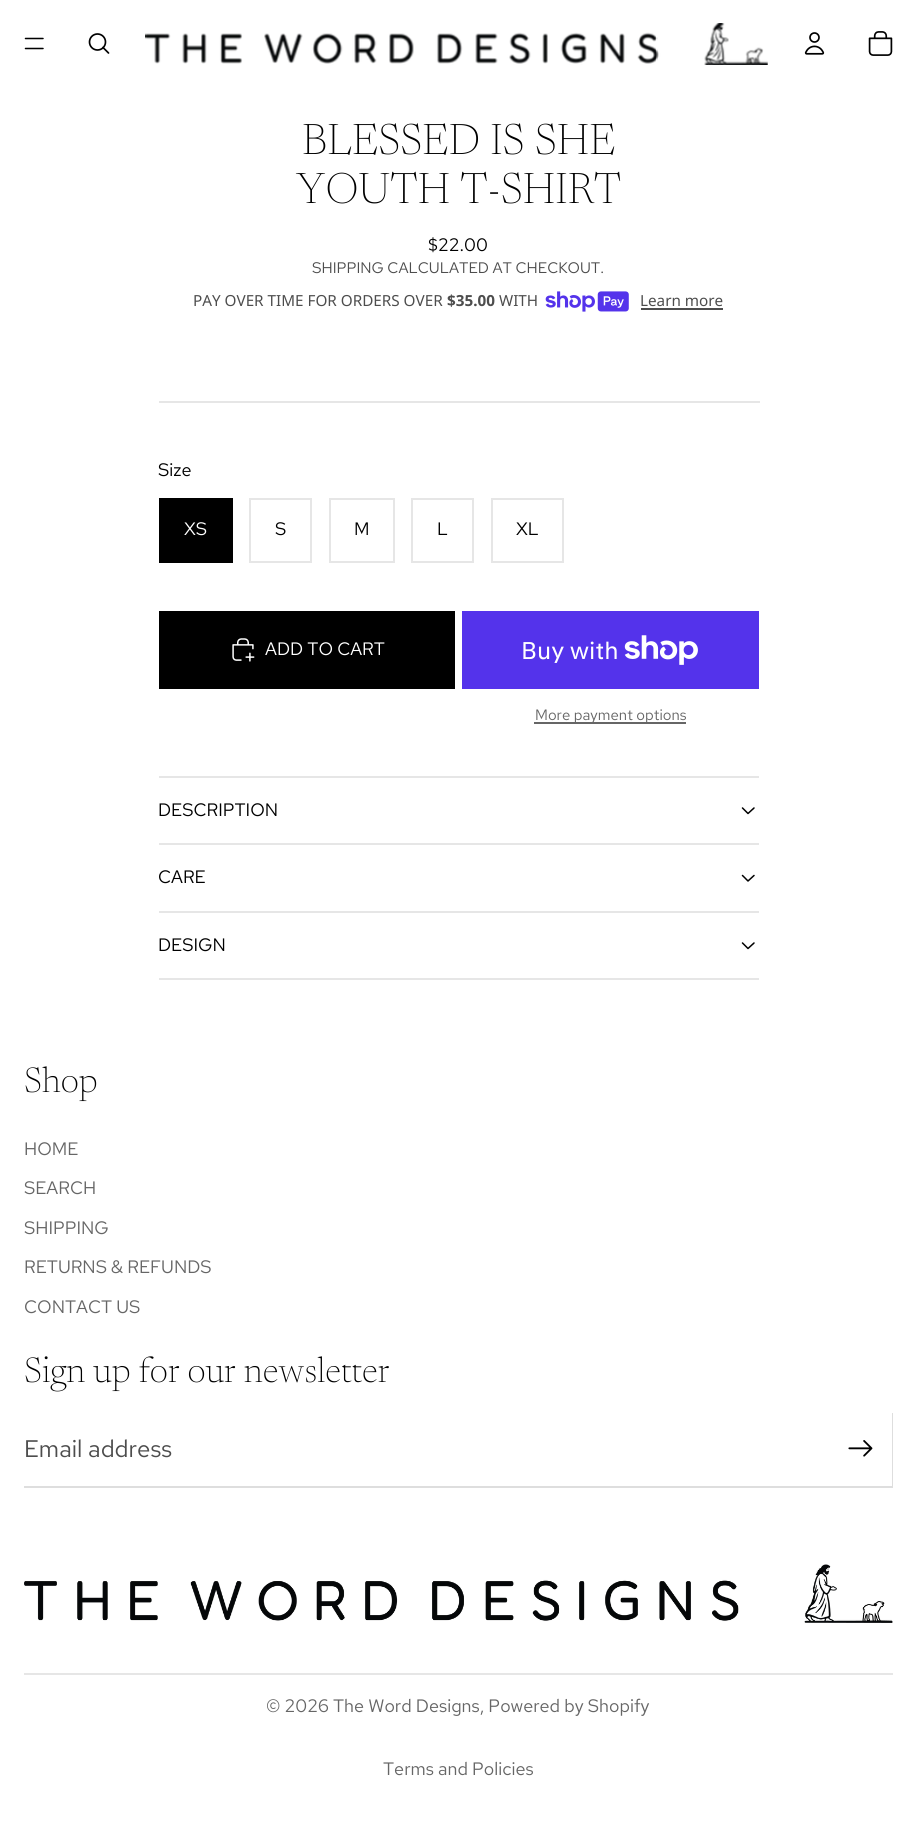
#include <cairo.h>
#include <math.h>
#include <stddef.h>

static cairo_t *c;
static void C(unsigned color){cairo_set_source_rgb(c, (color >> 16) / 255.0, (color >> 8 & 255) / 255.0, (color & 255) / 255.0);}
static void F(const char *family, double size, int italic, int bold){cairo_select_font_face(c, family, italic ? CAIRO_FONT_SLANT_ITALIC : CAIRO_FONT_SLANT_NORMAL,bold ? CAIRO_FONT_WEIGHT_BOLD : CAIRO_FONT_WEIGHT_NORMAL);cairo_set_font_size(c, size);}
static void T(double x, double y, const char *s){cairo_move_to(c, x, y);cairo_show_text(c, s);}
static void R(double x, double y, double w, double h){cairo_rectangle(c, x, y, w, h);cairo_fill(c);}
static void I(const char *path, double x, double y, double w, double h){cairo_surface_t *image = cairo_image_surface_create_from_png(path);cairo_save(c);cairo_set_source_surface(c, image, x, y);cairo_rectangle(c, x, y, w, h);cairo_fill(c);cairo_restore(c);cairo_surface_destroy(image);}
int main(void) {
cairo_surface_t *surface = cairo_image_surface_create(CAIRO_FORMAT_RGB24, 916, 1841);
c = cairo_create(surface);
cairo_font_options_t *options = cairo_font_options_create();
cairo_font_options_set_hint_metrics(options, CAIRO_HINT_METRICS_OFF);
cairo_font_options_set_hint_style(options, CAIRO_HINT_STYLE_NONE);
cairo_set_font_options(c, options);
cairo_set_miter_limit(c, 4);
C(0xffffff);
cairo_paint(c);
cairo_new_path(c);
cairo_move_to(c,25.5,38.5);
cairo_line_to(c,43,38.5);
cairo_move_to(c,25.5,48.5);
cairo_line_to(c,43,48.5);
C(0x000000);
cairo_set_line_width(c,1.5);
cairo_set_line_cap(c,CAIRO_LINE_CAP_ROUND);
cairo_stroke(c);
cairo_arc(c,97.5,42,8,0,2 * M_PI);
cairo_set_line_width(c,1.7);
cairo_set_line_cap(c,CAIRO_LINE_CAP_BUTT);
cairo_stroke(c);
cairo_new_path(c);
cairo_move_to(c,103,47.5);
cairo_line_to(c,108.5,53);
cairo_set_line_cap(c,CAIRO_LINE_CAP_ROUND);
cairo_set_line_join(c,CAIRO_LINE_JOIN_ROUND);
cairo_stroke(c);
I("1.png",145,23,623,42);
I("2.png",804,32,21,23);
I("3.png",868,31,25,25);
F("Newsreader ExtraLight",44,0,0);
T(302,154,"BLESSED IS SHE");
T(296,203,"YOUTH T-SHIRT");
F("Red Hat Text",18,0,0);
T(428,251,"$22.00");
F("Red Hat Text",15.25,0,0);
C(0x4d4d4d);
T(312,273,"SHIPPING CALCULATED AT CHECKOUT.");
F("Noto Sans",15.25,0,0);
T(193,306,"PAY OVER TIME FOR ORDERS OVER");
F("Noto Sans",15.25,0,1);
T(447,306,"$35.00");
F("Noto Sans",15.25,0,0);
T(499,306,"WITH");
I("4.png",545,291,84,21);
T(640,306,"Learn more");
R(641,308,82,2);
C(0xe6e6e6);
R(159,401,601,2);
F("Red Hat Text",18,0,0);
C(0x000000);
T(158,476,"Size");
cairo_rectangle(c,160,499,72,63);
cairo_set_line_width(c,2);
cairo_set_line_cap(c,CAIRO_LINE_CAP_BUTT);
cairo_set_line_join(c,CAIRO_LINE_JOIN_MITER);
cairo_stroke(c);
R(161,500,70,61);
C(0xffffff);
T(184,535,"XS");
cairo_rectangle(c,250,499,61,63);
C(0xe6e6e6);
cairo_stroke(c);
C(0x000000);
T(275,535,"S");
cairo_rectangle(c,330,499,64,63);
C(0xe6e6e6);
cairo_stroke(c);
C(0x000000);
T(354,535,"M");
cairo_rectangle(c,412,499,61,63);
C(0xe6e6e6);
cairo_stroke(c);
C(0x000000);
T(437,535,"L");
cairo_rectangle(c,492,499,71,63);
C(0xe6e6e6);
cairo_stroke(c);
C(0x000000);
T(516,535,"XL");
R(159,611,296,78);
I("5.png",232,638,23,24);
C(0xffffff);
T(265,655,"ADD TO CART");
C(0x5433eb);
R(462,611,297,78);
F("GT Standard",24,0,0);
C(0xffffff);
T(521,659,"Buy with");
I("6.png",624,635,74,30);
C(0x666666);
R(534,722,152,2);
F("Red Hat Text",15,0,0);
T(535,720,"More payment options");
C(0xe6e6e6);
R(159,776,600,2);
F("Red Hat Text",18,0,0);
C(0x000000);
T(158,816,"DESCRIPTION");
cairo_new_path(c);
cairo_move_to(c,754,808);
cairo_line_to(c,748,813.5);
cairo_line_to(c,742.5,808);
cairo_set_line_width(c,1.5);
cairo_set_line_cap(c,CAIRO_LINE_CAP_ROUND);
cairo_set_line_join(c,CAIRO_LINE_JOIN_ROUND);
cairo_stroke(c);
C(0xe6e6e6);
R(159,843,600,2);
C(0x000000);
T(158,883,"CARE");
cairo_new_path(c);
cairo_move_to(c,754,875.5);
cairo_line_to(c,748,881);
cairo_line_to(c,742.5,875.5);
cairo_stroke(c);
C(0xe6e6e6);
R(159,911,600,2);
R(159,978,600,2);
C(0x000000);
T(158,951,"DESIGN");
cairo_new_path(c);
cairo_move_to(c,754,943);
cairo_line_to(c,748,948.5);
cairo_line_to(c,742.5,943);
cairo_stroke(c);
F("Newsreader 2 ExtraLight",36,0,0);
T(24,1092,"Shop");
F("Red Hat Text",18,0,0);
C(0x666666);
T(24,1155,"HOME");
T(24,1194,"SEARCH");
T(24,1234,"SHIPPING");
T(24,1273,"RETURNS & REFUNDS");
T(24,1313,"CONTACT US");
F("Newsreader 2 ExtraLight",36,0,0);
C(0x000000);
T(24,1382,"Sign up for our newsletter");
C(0xdedede);
cairo_new_path(c);
cairo_move_to(c,24,1486);
cairo_line_to(c,24,1488);
cairo_line_to(c,893,1488);
cairo_line_to(c,893,1413);
cairo_line_to(c,892,1413);
cairo_line_to(c,892,1486);
cairo_close_path(c);
cairo_fill(c);
F("Red Hat Text",24,0,0);
C(0x4d4d4d);
T(24,1457,"Email address");
I("7.png",848,1440,25,17);
I("8.png",24,1564,869,59);
C(0xe6e6e6);
R(24,1673,869,2);
F("Red Hat Text",18,0,0);
C(0x666666);
T(266,1712,"© 2026 The Word Designs, Powered by Shopify");
T(383,1775,"Terms and Policies");
cairo_surface_write_to_png(surface, "o.png");
cairo_font_options_destroy(options);
cairo_destroy(c);
cairo_surface_destroy(surface);
return 0;
}
